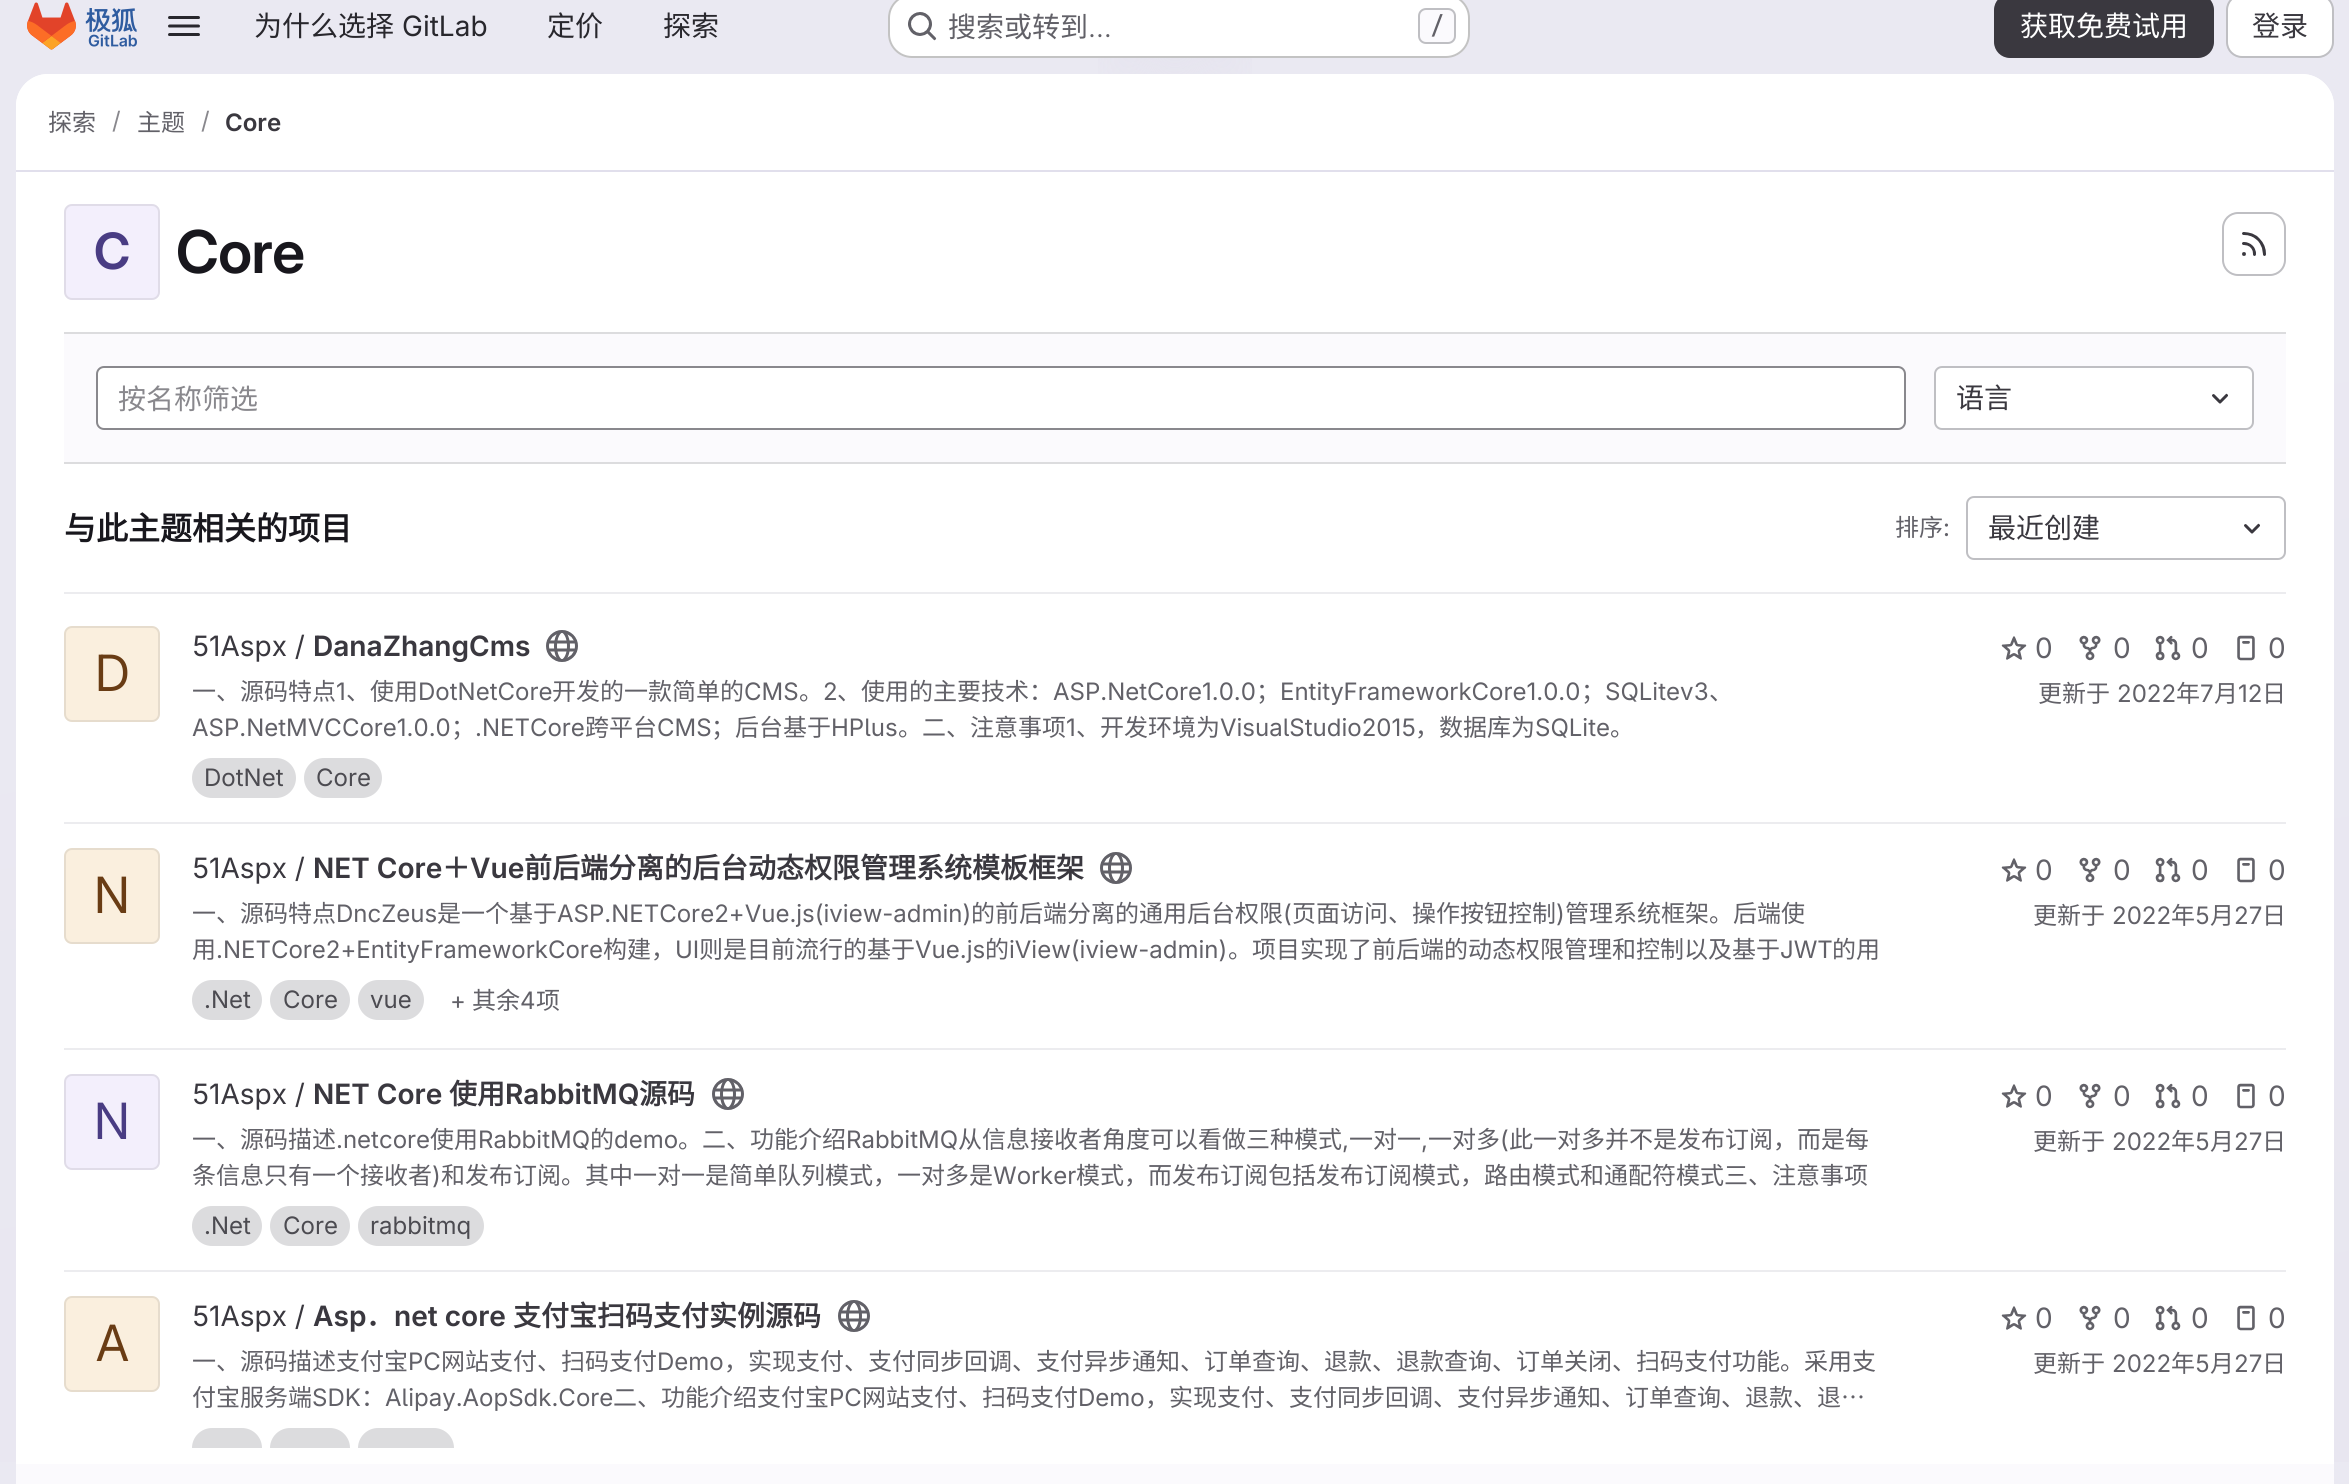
#include <cairo.h>
#include <math.h>
#include <stddef.h>

static cairo_t *c;
static void C(unsigned color){cairo_set_source_rgb(c, (color >> 16) / 255.0, (color >> 8 & 255) / 255.0, (color & 255) / 255.0);}
static void F(const char *family, double size, int italic, int bold){cairo_select_font_face(c, family, italic ? CAIRO_FONT_SLANT_ITALIC : CAIRO_FONT_SLANT_NORMAL,bold ? CAIRO_FONT_WEIGHT_BOLD : CAIRO_FONT_WEIGHT_NORMAL);cairo_set_font_size(c, size);}
static void T(double x, double y, const char *s){cairo_move_to(c, x, y);cairo_show_text(c, s);}
static void L(double x, double y, const char *s, double letter, double word){cairo_move_to(c, x, y);while (*s) {char ch[5] = {0};int n = 0;do ch[n++] = *s++; while ((*s & 0xC0) == 0x80);cairo_show_text(c, ch);cairo_rel_move_to(c, letter + word * (*ch == ' '), 0);}}
static void R(double x, double y, double w, double h){cairo_rectangle(c, x, y, w, h);cairo_fill(c);}
static void Q(double x, double y, double w, double h, double r){cairo_new_sub_path(c);cairo_arc(c, x + w - r, y + h - r, r, 0, M_PI / 2);cairo_arc(c, x + r, y + h - r, r, M_PI / 2, M_PI);cairo_arc(c, x + r, y + r, r, M_PI, 1.5 * M_PI);cairo_arc(c, x + w - r, y + r, r, 1.5 * M_PI, 2 * M_PI);cairo_close_path(c);}
static void I(const char *path, double x, double y, double w, double h){cairo_surface_t *image = cairo_image_surface_create_from_png(path);cairo_save(c);cairo_set_source_surface(c, image, x, y);cairo_rectangle(c, x, y, w, h);cairo_fill(c);cairo_restore(c);cairo_surface_destroy(image);}
int main(void) {
cairo_surface_t *surface = cairo_image_surface_create(CAIRO_FORMAT_RGB24, 2349, 1484);
c = cairo_create(surface);
cairo_font_options_t *options = cairo_font_options_create();
cairo_font_options_set_hint_metrics(options, CAIRO_HINT_METRICS_OFF);
cairo_font_options_set_hint_style(options, CAIRO_HINT_STYLE_NONE);
cairo_set_font_options(c, options);
cairo_set_miter_limit(c, 4);
cairo_pattern_t *gradient;
C(0xffffff);
cairo_paint(c);
gradient = cairo_pattern_create_linear(1337,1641,1013,-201);
cairo_pattern_add_color_stop_rgba(gradient,0,0.91,0.902,0.941,1);
cairo_pattern_add_color_stop_rgba(gradient,.7,0.918,0.914,0.949,1);
cairo_set_source(c,gradient);
cairo_pattern_destroy(gradient);
R(0,0,2349,1462);
gradient = cairo_pattern_create_radial(0,0,0,0,0,1);
cairo_pattern_set_matrix(gradient, &(cairo_matrix_t){1.0 / 1175, 0, 0, 1.0 / 1484, -1.0 * 1175 / 1175, -1.0 * -22 / 1484});
cairo_pattern_add_color_stop_rgba(gradient,0,0.894,0.886,0.929,1);
cairo_pattern_add_color_stop_rgba(gradient,.12,0.894,0.886,0.929,0);
cairo_set_source(c,gradient);
cairo_pattern_destroy(gradient);
R(1098,58,154,16);
gradient = cairo_pattern_create_radial(0,0,0,0,0,1);
cairo_pattern_set_matrix(gradient, &(cairo_matrix_t){1.0 / 1175, 0, 0, 1.0 / 1484, -1.0 * 1175 / 1175, -1.0 * 1462 / 1484});
cairo_pattern_add_color_stop_rgba(gradient,0,0.894,0.886,0.929,1);
cairo_pattern_add_color_stop_rgba(gradient,.12,0.918,0.914,0.949,1);
cairo_set_source(c,gradient);
cairo_pattern_destroy(gradient);
R(0,1462,2349,22);
I("1.png",27,2,110,48);
I("2.png",168,16,32,20);
F("Noto Sans CJK SC",28,0,0);
C(0x28272d);
T(254,36,"为什么选择");
F("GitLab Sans",28,0,0);
T(402,36,"GitLab");
F("Noto Sans CJK SC",28,0,0);
T(547,36,"定价");
T(663,36,"探索");
C(0xffffff);
Q(888,-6,582,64,24);
cairo_fill(c);
Q(889,-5,580,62,23);
cairo_set_source_rgba(c,0.02,0.02,0.024,0.24);
cairo_stroke(c);
I("3.png",908,12,29,29);
C(0x626168);
T(948,37,"搜索或转到");
F("GitLab Sans Light",28,0,0);
T(1088,37,"…");
C(0xfbfafd);
Q(1419,9,36,34,7);
cairo_fill_preserve(c);
C(0xbfbfc3);
cairo_stroke(c);
F("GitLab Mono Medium",24,0,0);
C(0x626168);
T(1430,34,"/");
C(0x3a383f);
Q(1995,-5,218,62,15);
cairo_fill_preserve(c);
cairo_stroke(c);
F("Noto Sans CJK SC",28,0,0);
C(0xffffff);
T(2020,36,"获取免费试用");
Q(2227,-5,106,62,15);
cairo_fill_preserve(c);
C(0xbfbfc3);
cairo_stroke(c);
C(0x3a383f);
T(2252,36,"登录");
C(0xffffff);
Q(16,74,2318,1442,32);
cairo_fill(c);
cairo_new_path(c);
cairo_move_to(c,48,74);
cairo_line_to(c,2302,74);
cairo_curve_to(c,2319.5,74,2334,88.5,2334,106);
cairo_line_to(c,2334,172);
cairo_line_to(c,16,172);
cairo_line_to(c,16,106);
cairo_curve_to(c,16,88.5,30.5,74,48,74);
cairo_close_path(c);
cairo_fill(c);
C(0xe1dfec);
R(16,170,2318,2);
F("Noto Sans CJK SC",24,0,0);
C(0x626168);
T(48,131,"探索");
F("GitLab Sans",24,0,0);
C(0x89888d);
T(112,129,"/");
F("Noto Sans CJK SC",24,0,0);
C(0x626168);
T(137,131,"主题");
F("GitLab Sans",24,0,0);
C(0x89888d);
T(201,129,"/");
F("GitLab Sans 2 SemiBold",24,0,0);
C(0x3a383f);
T(225,131,"Core");
C(0xf3effc);
Q(64,204,96,96,8);
cairo_fill(c);
Q(65,205,94,94,7);
cairo_set_source_rgba(c,0.02,0.02,0.024,0.08);
cairo_stroke(c);
F("GitLab Sans SemiBold",50,0,0);
C(0x493c83);
L(94,269,"C",-.5,0);
F("GitLab Sans SemiBold",59,0,0);
C(0x18171d);
L(176,273,"Core",-.5,0);
Q(2223,213,62,62,15);
C(0xbfbfc3);
cairo_stroke(c);
I("4.png",2242,232,24,24);
C(0xfbfafd);
R(64,334,2222,128);
C(0xdcdcde);
R(64,332,2222,2);
R(64,462,2222,2);
C(0xffffff);
Q(97,367,1808,62,7);
cairo_fill_preserve(c);
C(0x89888d);
cairo_stroke(c);
F("Noto Sans CJK SC",28,0,0);
T(118,409,"按名称筛选");
C(0xffffff);
Q(1935,367,318,62,7);
cairo_fill_preserve(c);
C(0xbfbfc3);
cairo_stroke(c);
C(0x3a383f);
T(1956,408,"语言");
I("5.png",2212,393,16,11);
C(0xececef);
R(64,592,2222,2);
F("Noto Sans CJK SC",32,0,1);
C(0x18171d);
T(64,540,"与此主题相关的项目");
F("Noto Sans CJK SC",24,0,0);
C(0x626168);
T(1895,536,"排序");
F("GitLab Sans",24,0,0);
T(1943,536,":");
Q(1967,497,318,62,7);
C(0xbfbfc3);
cairo_stroke(c);
F("Noto Sans CJK SC",28,0,0);
C(0x3a383f);
T(1988,538,"最近创建");
I("5.png",2244,523,16,11);
C(0xececef);
R(64,822,2222,2);
C(0xfaefde);
Q(64,626,96,96,8);
cairo_fill(c);
Q(65,627,94,94,7);
cairo_set_source_rgba(c,0.02,0.02,0.024,0.08);
cairo_stroke(c);
F("GitLab Sans 2",50,0,0);
C(0x693c14);
T(95,691,"D");
F("GitLab Sans",28,0,0);
C(0x3a383f);
T(192,656,"51Aspx /");
F("GitLab Sans 2 SemiBold",28,0,0);
T(313,656,"DanaZhangCms");
I("6.png",546,630,32,32);
F("Noto Sans CJK SC",24,0,0);
C(0x626168);
T(192,700,"一、源码特点");
F("GitLab Sans",24,0,0);
T(336,700,"1");
F("Noto Sans CJK SC",24,0,0);
T(346,700,"、使用");
F("GitLab Sans",24,0,0);
T(418,700,"DotNetCore");
F("Noto Sans CJK SC",24,0,0);
T(552,700,"开发的一款简单的");
F("GitLab Sans",24,0,0);
T(744,700,"CMS");
F("Noto Sans CJK SC",24,0,0);
T(799,700,"。");
F("GitLab Sans",24,0,0);
T(823,700,"2");
F("Noto Sans CJK SC",24,0,0);
T(837,700,"、使用的主要技术：");
F("GitLab Sans",24,0,0);
T(1053,700,"ASP.NetCore1.0.0");
F("Noto Sans CJK SC",24,0,0);
T(1256,700,"；");
F("GitLab Sans",24,0,0);
T(1280,700,"EntityFrameworkCore1.0.0");
F("Noto Sans CJK SC",24,0,0);
T(1581,700,"；");
F("GitLab Sans",24,0,0);
T(1605,700,"SQLitev3");
F("Noto Sans CJK SC",24,0,0);
T(1709,700,"、");
F("GitLab Sans",24,0,0);
T(192,736,"ASP.NetMVCCore1.0.0");
F("Noto Sans CJK SC",24,0,0);
T(451,736,"；");
F("GitLab Sans",24,0,0);
T(475,736,".NETCore");
F("Noto Sans CJK SC",24,0,0);
T(585,736,"跨平台");
F("GitLab Sans",24,0,0);
T(657,736,"CMS");
F("Noto Sans CJK SC",24,0,0);
T(711,736,"；后台基于");
F("GitLab Sans",24,0,0);
T(831,736,"HPlus");
F("Noto Sans CJK SC",24,0,0);
T(898,736,"。二、注意事项");
F("GitLab Sans",24,0,0);
T(1066,736,"1");
F("Noto Sans CJK SC",24,0,0);
T(1076,736,"、开发环境为");
F("GitLab Sans",24,0,0);
T(1220,736,"VisualStudio2015");
F("Noto Sans CJK SC",24,0,0);
T(1415,736,"，数据库为");
F("GitLab Sans",24,0,0);
T(1535,736,"SQLite");
F("Noto Sans CJK SC",24,0,0);
T(1610,736,"。");
C(0xdcdcde);
Q(192,758,104,40,20);
cairo_fill(c);
F("GitLab Sans",24,0,0);
C(0x4c4b51);
T(204,786,"DotNet");
C(0xdcdcde);
Q(304,758,78,40,20);
cairo_fill(c);
C(0x4c4b51);
T(316,786,"Core");
I("7.png",2001,636,26,24);
F("GitLab Sans",28,0,0);
C(0x626168);
T(2035,658,"0");
I("8.png",2079,635,22,26);
T(2113,658,"0");
I("9.png",2155,635,26,26);
T(2191,658,"0");
I("10.png",2237,635,18,26);
T(2268,658,"0");
F("Noto Sans CJK SC",24,0,0);
T(2038,702,"更新于");
F("GitLab Sans",24,0,0);
T(2117,702,"2022");
F("Noto Sans CJK SC",24,0,0);
T(2176,702,"年");
F("GitLab Sans",24,0,0);
T(2200,702,"7");
F("Noto Sans CJK SC",24,0,0);
T(2214,702,"月");
F("GitLab Sans",24,0,0);
T(2238,702,"12");
F("Noto Sans CJK SC",24,0,0);
T(2262,702,"日");
C(0xececef);
R(64,1048,2222,2);
C(0xfaefde);
Q(64,848,96,96,8);
cairo_fill(c);
Q(65,849,94,94,7);
cairo_set_source_rgba(c,0.02,0.02,0.024,0.08);
cairo_stroke(c);
F("GitLab Sans 2",50,0,0);
C(0x693c14);
T(94,913,"N");
F("GitLab Sans",28,0,0);
C(0x3a383f);
T(192,878,"51Aspx /");
F("GitLab Sans 2 SemiBold",28,0,0);
T(313,878,"NET Core");
F("Noto Sans CJK SC",28,0,1);
T(442,878,"＋");
F("GitLab Sans 2 SemiBold",28,0,0);
T(470,878,"Vue");
F("Noto Sans CJK SC",28,0,1);
T(524,878,"前后端分离的后台动态权限管理系统模板框架");
I("6.png",1100,852,32,32);
F("Noto Sans CJK SC",24,0,0);
C(0x626168);
T(192,922,"一、源码特点");
F("GitLab Sans",24,0,0);
T(336,922,"DncZeus");
F("Noto Sans CJK SC",24,0,0);
T(437,922,"是一个基于");
F("GitLab Sans",24,0,0);
T(557,922,"ASP.NETCore2+Vue.js(iview-admin)");
F("Noto Sans CJK SC",24,0,0);
T(971,922,"的前后端分离的通用后台权限");
F("GitLab Sans",24,0,0);
T(1283,922,"(");
F("Noto Sans CJK SC",24,0,0);
T(1292,922,"页面访问、操作按钮控制");
F("GitLab Sans",24,0,0);
T(1556,922,")");
F("Noto Sans CJK SC",24,0,0);
T(1565,922,"管理系统框架。后端使");
T(192,958,"用");
F("GitLab Sans",24,0,0);
T(216,958,".NETCore2+EntityFrameworkCore");
F("Noto Sans CJK SC",24,0,0);
T(603,958,"构建，");
F("GitLab Sans",24,0,0);
T(675,958,"UI");
F("Noto Sans CJK SC",24,0,0);
T(699,958,"则是目前流行的基于");
F("GitLab Sans",24,0,0);
T(915,958,"Vue.js");
F("Noto Sans CJK SC",24,0,0);
T(985,958,"的");
F("GitLab Sans",24,0,0);
T(1009,958,"iView(iview-admin)");
F("Noto Sans CJK SC",24,0,0);
T(1228,958,"。项目实现了前后端的动态权限管理和控制以及基于");
F("GitLab Sans",24,0,0);
T(1780,958,"JWT");
F("Noto Sans CJK SC",24,0,0);
T(1832,958,"的用");
C(0xdcdcde);
Q(192,980,70,40,20);
cairo_fill(c);
F("GitLab Sans",24,0,0);
C(0x4c4b51);
T(204,1008,".Net");
C(0xdcdcde);
Q(270,980,80,40,20);
cairo_fill(c);
C(0x4c4b51);
T(283,1008,"Core");
C(0xdcdcde);
Q(358,980,66,40,20);
cairo_fill(c);
C(0x4c4b51);
T(370,1008,"vue");
C(0x626168);
T(450,1009,"+");
F("Noto Sans CJK SC",24,0,0);
T(472,1009,"其余");
F("GitLab Sans",24,0,0);
T(520,1009,"4");
F("Noto Sans CJK SC",24,0,0);
T(536,1009,"项");
I("7.png",2001,858,26,24);
F("GitLab Sans",28,0,0);
T(2035,880,"0");
I("11.png",2079,857,22,26);
T(2113,880,"0");
I("9.png",2155,857,26,26);
T(2191,880,"0");
I("10.png",2237,857,18,26);
T(2268,880,"0");
F("Noto Sans CJK SC",24,0,0);
T(2033,924,"更新于");
F("GitLab Sans",24,0,0);
T(2112,924,"2022");
F("Noto Sans CJK SC",24,0,0);
T(2171,924,"年");
F("GitLab Sans",24,0,0);
T(2195,924,"5");
F("Noto Sans CJK SC",24,0,0);
T(2210,924,"月");
F("GitLab Sans",24,0,0);
T(2234,924,"27");
F("Noto Sans CJK SC",24,0,0);
T(2262,924,"日");
C(0xececef);
R(64,1270,2222,2);
C(0xf3effc);
Q(64,1074,96,96,8);
cairo_fill(c);
Q(65,1075,94,94,7);
cairo_set_source_rgba(c,0.02,0.02,0.024,0.08);
cairo_stroke(c);
F("GitLab Sans 2",50,0,0);
C(0x493c83);
T(94,1139,"N");
F("GitLab Sans",28,0,0);
C(0x3a383f);
T(192,1104,"51Aspx /");
F("GitLab Sans 2 SemiBold",28,0,0);
T(313,1104,"NET Core");
F("Noto Sans CJK SC",28,0,1);
T(449,1104,"使用");
F("GitLab Sans 2 SemiBold",28,0,0);
T(505,1104,"RabbitMQ");
F("Noto Sans CJK SC",28,0,1);
T(639,1104,"源码");
I("6.png",712,1078,32,32);
F("Noto Sans CJK SC",24,0,0);
C(0x626168);
T(192,1148,"一、源码描述");
F("GitLab Sans",24,0,0);
T(336,1148,".netcore");
F("Noto Sans CJK SC",24,0,0);
T(430,1148,"使用");
F("GitLab Sans",24,0,0);
T(478,1148,"RabbitMQ");
F("Noto Sans CJK SC",24,0,0);
T(590,1148,"的");
F("GitLab Sans",24,0,0);
T(614,1148,"demo");
F("Noto Sans CJK SC",24,0,0);
T(678,1148,"。二、功能介绍");
F("GitLab Sans",24,0,0);
T(846,1148,"RabbitMQ");
F("Noto Sans CJK SC",24,0,0);
T(958,1148,"从信息接收者角度可以看做三种模式");
F("GitLab Sans",24,0,0);
T(1342,1148,",");
F("Noto Sans CJK SC",24,0,0);
T(1349,1148,"一对一");
F("GitLab Sans",24,0,0);
T(1421,1148,",");
F("Noto Sans CJK SC",24,0,0);
T(1428,1148,"一对多");
F("GitLab Sans",24,0,0);
T(1500,1148,"(");
F("Noto Sans CJK SC",24,0,0);
T(1509,1148,"此一对多并不是发布订阅，而是每");
T(192,1184,"条信息只有一个接收者");
F("GitLab Sans",24,0,0);
T(432,1184,")");
F("Noto Sans CJK SC",24,0,0);
T(441,1184,"和发布订阅。其中一对一是简单队列模式，一对多是");
F("GitLab Sans",24,0,0);
T(993,1184,"Worker");
F("Noto Sans CJK SC",24,0,0);
T(1076,1184,"模式，而发布订阅包括发布订阅模式，路由模式和通配符模式三、注意事项");
C(0xdcdcde);
Q(192,1206,70,40,20);
cairo_fill(c);
F("GitLab Sans",24,0,0);
C(0x4c4b51);
T(204,1234,".Net");
C(0xdcdcde);
Q(270,1206,80,40,20);
cairo_fill(c);
C(0x4c4b51);
T(283,1234,"Core");
C(0xdcdcde);
Q(358,1206,126,40,20);
cairo_fill(c);
C(0x4c4b51);
T(370,1234,"rabbitmq");
I("7.png",2001,1084,26,24);
F("GitLab Sans",28,0,0);
C(0x626168);
T(2035,1106,"0");
I("12.png",2079,1083,22,26);
T(2113,1106,"0");
I("9.png",2155,1083,26,26);
T(2191,1106,"0");
I("10.png",2237,1083,18,26);
T(2268,1106,"0");
F("Noto Sans CJK SC",24,0,0);
T(2033,1150,"更新于");
F("GitLab Sans",24,0,0);
T(2112,1150,"2022");
F("Noto Sans CJK SC",24,0,0);
T(2171,1150,"年");
F("GitLab Sans",24,0,0);
T(2195,1150,"5");
F("Noto Sans CJK SC",24,0,0);
T(2210,1150,"月");
F("GitLab Sans",24,0,0);
T(2234,1150,"27");
F("Noto Sans CJK SC",24,0,0);
T(2262,1150,"日");
C(0xfaefde);
Q(64,1296,96,96,8);
cairo_fill(c);
Q(65,1297,94,94,7);
cairo_set_source_rgba(c,0.02,0.02,0.024,0.08);
cairo_stroke(c);
F("GitLab Sans 2",50,0,0);
C(0x693c14);
T(96,1361,"A");
F("GitLab Sans",28,0,0);
C(0x3a383f);
T(192,1326,"51Aspx /");
F("GitLab Sans 2 SemiBold",28,0,0);
T(313,1326,"Asp");
F("Noto Sans CJK SC",28,0,1);
T(366,1326,"．");
F("GitLab Sans 2 SemiBold",28,0,0);
T(394,1326,"net core");
F("Noto Sans CJK SC",28,0,1);
T(513,1326,"支付宝扫码支付实例源码");
I("6.png",838,1300,32,32);
F("Noto Sans CJK SC",24,0,0);
C(0x626168);
T(192,1370,"一、源码描述支付宝");
F("GitLab Sans",24,0,0);
T(408,1370,"PC");
F("Noto Sans CJK SC",24,0,0);
T(441,1370,"网站支付、扫码支付");
F("GitLab Sans",24,0,0);
T(657,1370,"Demo");
F("Noto Sans CJK SC",24,0,0);
T(724,1370,"，实现支付、支付同步回调、支付异步通知、订单查询、退款、退款查询、订单关闭、扫码支付功能。采用支");
T(192,1406,"付宝服务端");
F("GitLab Sans",24,0,0);
T(312,1406,"SDK");
F("Noto Sans CJK SC",24,0,0);
T(361,1406,"：");
F("GitLab Sans",24,0,0);
T(385,1406,"Alipay.AopSdk.Core");
F("Noto Sans CJK SC",24,0,0);
T(613,1406,"二、功能介绍支付宝");
F("GitLab Sans",24,0,0);
T(829,1406,"PC");
F("Noto Sans CJK SC",24,0,0);
T(862,1406,"网站支付、扫码支付");
F("GitLab Sans",24,0,0);
T(1078,1406,"Demo");
F("Noto Sans CJK SC",24,0,0);
T(1145,1406,"，实现支付、支付同步回调、支付异步通知、订单查询、退款、退…");
C(0xdcdcde);
cairo_new_path(c);
cairo_move_to(c,212,1428);
cairo_line_to(c,242,1428);
cairo_curve_to(c,253,1428,262,1437,262,1448);
cairo_line_to(c,192,1448);
cairo_curve_to(c,192,1437,201,1428,212,1428);
cairo_close_path(c);
cairo_fill(c);
cairo_new_path(c);
cairo_move_to(c,290,1428);
cairo_line_to(c,330,1428);
cairo_curve_to(c,341,1428,350,1437,350,1448);
cairo_line_to(c,270,1448);
cairo_curve_to(c,270,1437,279,1428,290,1428);
cairo_close_path(c);
cairo_fill(c);
cairo_new_path(c);
cairo_move_to(c,378,1428);
cairo_line_to(c,434,1428);
cairo_curve_to(c,445,1428,454,1437,454,1448);
cairo_line_to(c,358,1448);
cairo_curve_to(c,358,1437,367,1428,378,1428);
cairo_close_path(c);
cairo_fill(c);
I("7.png",2001,1306,26,24);
F("GitLab Sans",28,0,0);
C(0x626168);
T(2035,1328,"0");
I("8.png",2079,1305,22,26);
T(2113,1328,"0");
I("9.png",2155,1305,26,26);
T(2191,1328,"0");
I("10.png",2237,1305,18,26);
T(2268,1328,"0");
F("Noto Sans CJK SC",24,0,0);
T(2033,1372,"更新于");
F("GitLab Sans",24,0,0);
T(2112,1372,"2022");
F("Noto Sans CJK SC",24,0,0);
T(2171,1372,"年");
F("GitLab Sans",24,0,0);
T(2195,1372,"5");
F("Noto Sans CJK SC",24,0,0);
T(2210,1372,"月");
F("GitLab Sans",24,0,0);
T(2234,1372,"27");
F("Noto Sans CJK SC",24,0,0);
T(2262,1372,"日");
C(0xfbfafd);
R(16,1464,2318,20);
cairo_surface_write_to_png(surface, "o.png");
cairo_font_options_destroy(options);
cairo_destroy(c);
cairo_surface_destroy(surface);
return 0;
}
